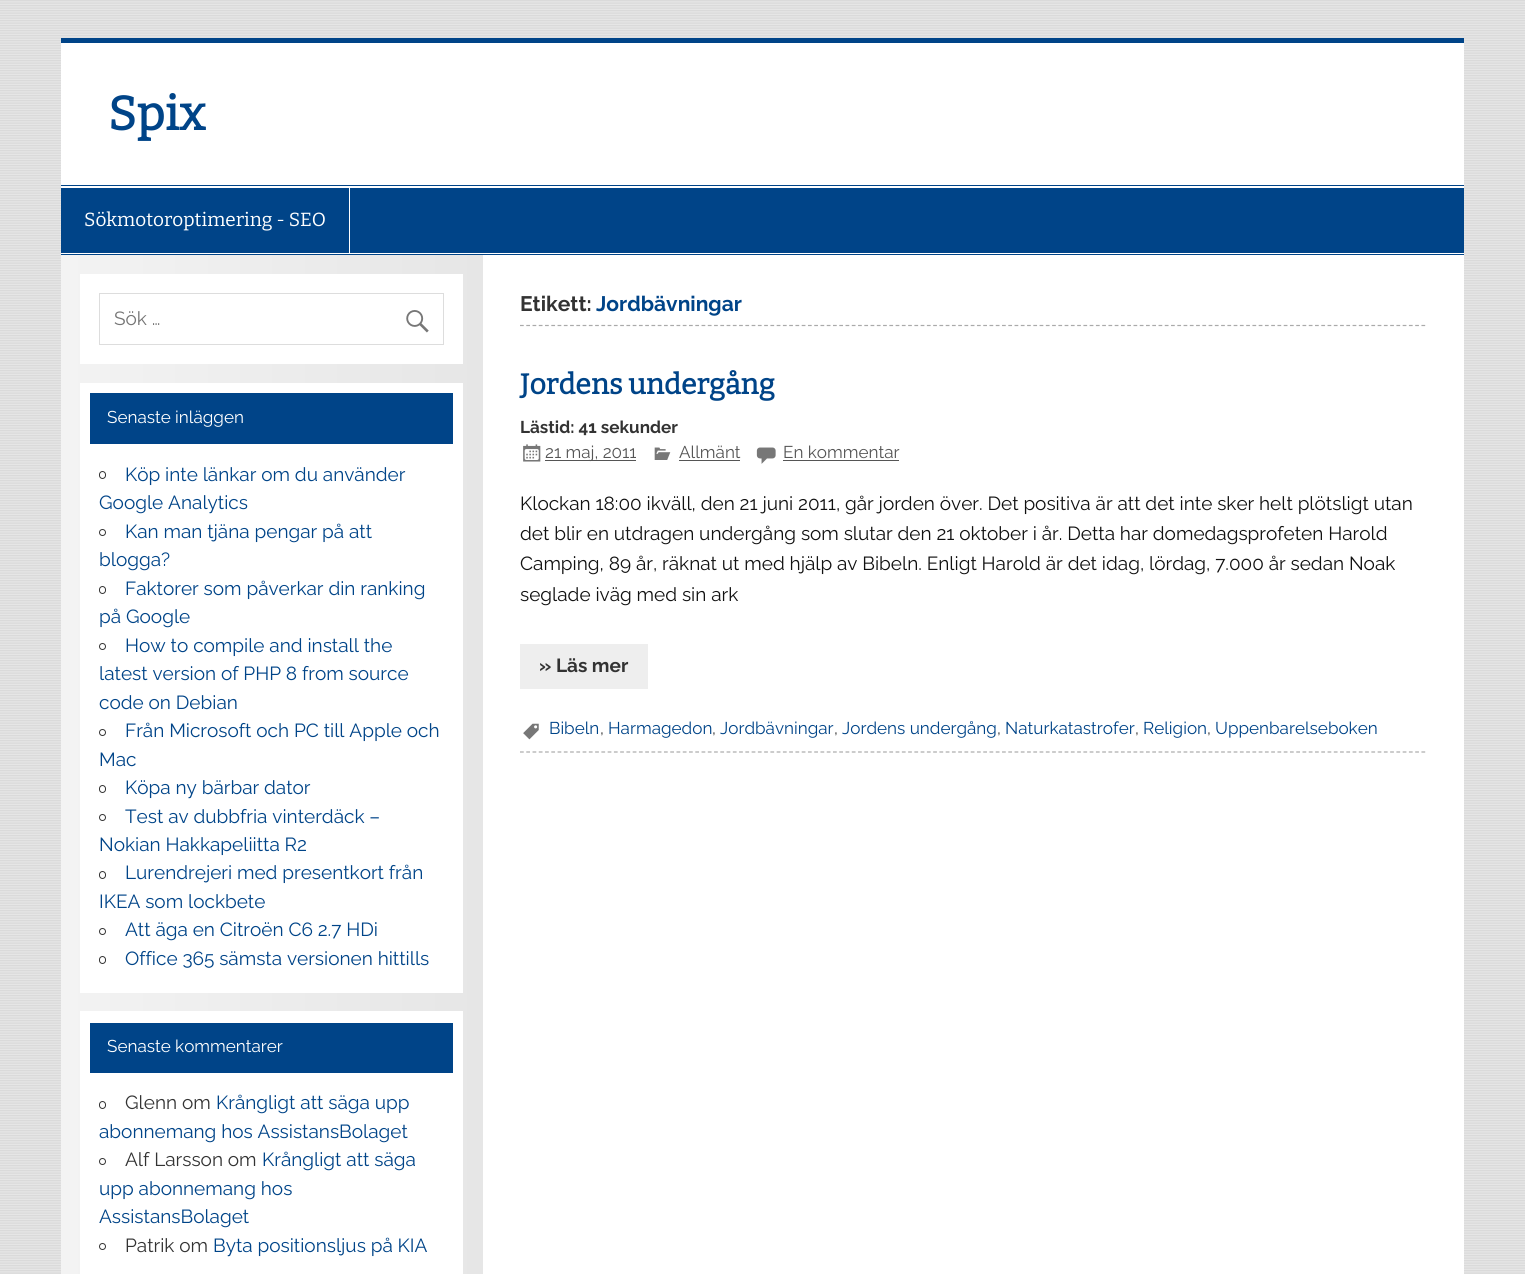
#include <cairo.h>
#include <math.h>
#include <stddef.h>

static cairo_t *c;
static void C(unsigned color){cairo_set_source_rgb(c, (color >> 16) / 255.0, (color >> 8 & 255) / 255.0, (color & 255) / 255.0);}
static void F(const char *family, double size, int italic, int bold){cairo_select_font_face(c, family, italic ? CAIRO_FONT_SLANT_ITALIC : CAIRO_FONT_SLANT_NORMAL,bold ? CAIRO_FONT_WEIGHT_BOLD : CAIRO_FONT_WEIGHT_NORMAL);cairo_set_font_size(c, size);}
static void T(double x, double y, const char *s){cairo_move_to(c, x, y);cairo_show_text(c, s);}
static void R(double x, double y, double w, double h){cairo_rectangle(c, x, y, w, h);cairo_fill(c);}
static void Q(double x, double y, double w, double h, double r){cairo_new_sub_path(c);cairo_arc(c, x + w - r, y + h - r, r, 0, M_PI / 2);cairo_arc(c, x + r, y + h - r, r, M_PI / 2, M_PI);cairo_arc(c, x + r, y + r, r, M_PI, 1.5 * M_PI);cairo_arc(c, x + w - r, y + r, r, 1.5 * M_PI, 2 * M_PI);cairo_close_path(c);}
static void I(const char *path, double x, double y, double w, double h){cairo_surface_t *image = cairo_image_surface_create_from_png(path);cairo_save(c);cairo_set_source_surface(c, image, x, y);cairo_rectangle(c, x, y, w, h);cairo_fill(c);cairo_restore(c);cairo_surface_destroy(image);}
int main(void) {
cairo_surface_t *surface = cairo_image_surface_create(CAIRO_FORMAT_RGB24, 1525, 1274);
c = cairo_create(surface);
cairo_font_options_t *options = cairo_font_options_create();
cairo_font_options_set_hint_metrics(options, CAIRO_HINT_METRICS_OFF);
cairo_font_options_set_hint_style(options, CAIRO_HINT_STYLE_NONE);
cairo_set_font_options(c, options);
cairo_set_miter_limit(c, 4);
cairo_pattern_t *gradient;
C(0xffffff);
cairo_paint(c);
I("1.png",0,0,1525,1274);
C(0xffffff);
R(61,43,1403,1231);
C(0x004488);
R(61,38,1403,5);
F("Bitter",47.5,0,1);
T(108,130,"Spix");
R(61,185,1403,1);
R(61,254,1403,1);
R(61,188,1403,65);
C(0xffffff);
R(349,188,1,65);
F("Bitter Thin",19,0,0);
T(84,226,"Sökmotoroptimering - SEO");
gradient = cairo_pattern_create_linear(61,886,483,886);
cairo_pattern_add_color_stop_rgba(gradient,0,0.953,0.953,0.953,1);
cairo_pattern_add_color_stop_rgba(gradient,1,0.902,0.902,0.902,1);
cairo_set_source(c,gradient);
cairo_pattern_destroy(gradient);
R(61,255,422,1019);
C(0xffffff);
R(80,274,383,90);
cairo_rectangle(c,99.5,293.5,344,51);
C(0xdddddd);
cairo_set_line_width(c,1);
cairo_stroke(c);
F("Raleway",19,0,0);
C(0x757575);
T(114,325,"Sök …");
I("2.png",406,310,23,23);
C(0xffffff);
R(80,383,383,610);
C(0x004488);
R(90,393,363,51);
F("Raleway",17.1,0,0);
C(0xffffff);
T(107,423,"Senaste inläggen");
Q(99.5,471.5,6,7,3);
C(0x333333);
cairo_stroke(c);
F("Raleway",19,0,0);
C(0x004488);
T(125,481,"Köp inte länkar om du använder");
T(99,509,"Google Analytics");
cairo_new_path(c);
cairo_arc(c,102.5,532.5,3,0,2 * M_PI);
C(0x333333);
cairo_stroke(c);
C(0x004488);
T(125,538,"Kan man tjäna pengar på att");
T(99,566,"blogga?");
Q(99.5,586.5,6,7,3);
C(0x333333);
cairo_stroke(c);
C(0x004488);
T(125,595,"Faktorer som påverkar din ranking");
T(99,623,"på Google");
cairo_new_path(c);
cairo_arc(c,102.5,646.5,3,0,2 * M_PI);
C(0x333333);
cairo_stroke(c);
C(0x004488);
T(125,652,"How to compile and install the");
T(99,680,"latest version of PHP 8 from source");
T(99,709,"code on Debian");
cairo_new_path(c);
cairo_arc(c,102.5,732.5,3,0,2 * M_PI);
C(0x333333);
cairo_stroke(c);
C(0x004488);
T(125,737,"Från Microsoft och PC till Apple och");
T(99,766,"Mac");
Q(99.5,785.5,6,7,3);
C(0x333333);
cairo_stroke(c);
C(0x004488);
T(125,794,"Köpa ny bärbar dator");
cairo_new_path(c);
cairo_arc(c,102.5,817.5,3,0,2 * M_PI);
C(0x333333);
cairo_stroke(c);
C(0x004488);
T(125,823,"Test av dubbfria vinterdäck –");
T(99,851,"Nokian Hakkapeliitta R2");
Q(99.5,871.5,6,7,3);
C(0x333333);
cairo_stroke(c);
C(0x004488);
T(125,879,"Lurendrejeri med presentkort från");
T(99,908,"IKEA som lockbete");
cairo_new_path(c);
cairo_arc(c,102.5,931.5,3,0,2 * M_PI);
C(0x333333);
cairo_stroke(c);
C(0x004488);
T(125,936,"Att äga en Citroën C6 2.7 HDi");
Q(99.5,956.5,6,7,3);
C(0x333333);
cairo_stroke(c);
C(0x004488);
T(125,965,"Office 365 sämsta versionen hittills");
C(0xffffff);
R(80,1011,383,263);
C(0x004488);
R(90,1023,363,50);
F("Raleway",17.1,0,0);
C(0xffffff);
T(107,1052,"Senaste kommentarer");
Q(99.5,1101.5,6,7,3);
C(0x333333);
cairo_stroke(c);
F("Raleway",19,0,0);
T(125,1109,"Glenn om");
C(0x004488);
T(216,1109,"Krångligt att säga upp");
T(99,1138,"abonnemang hos AssistansBolaget");
cairo_new_path(c);
cairo_arc(c,102.5,1161.5,3,0,2 * M_PI);
C(0x333333);
cairo_stroke(c);
T(125,1166,"Alf Larsson om");
C(0x004488);
T(262,1166,"Krångligt att säga");
T(99,1195,"upp abonnemang hos");
T(99,1223,"AssistansBolaget");
cairo_new_path(c);
cairo_arc(c,102.5,1246.5,3,0,2 * M_PI);
C(0x333333);
cairo_stroke(c);
T(125,1252,"Patrik om");
C(0x004488);
T(213,1252,"Byta positionsljus på KIA");
cairo_new_path(c);
cairo_move_to(c,520,325.5);
cairo_line_to(c,1426,325.5);
C(0xaaaaaa);
cairo_set_line_width(c,1.2);
cairo_set_dash(c,(double[]){3.75,2.51},2,0);
cairo_stroke(c);
F("Raleway",21,0,1);
C(0x333333);
T(520,311,"Etikett:");
C(0x004488);
T(596,311,"Jordbävningar");
cairo_new_path(c);
cairo_move_to(c,520,752);
cairo_line_to(c,1426,752);
C(0xaaaaaa);
cairo_stroke(c);
F("Bitter",28.5,0,1);
C(0x004488);
T(520,394,"Jordens undergång");
F("Raleway",17.1,0,1);
C(0x333333);
T(520,433,"Lästid: 41 sekunder");
I("3.png",523,444,18,18);
C(0x555555);
R(545,460,91,1);
F("Raleway",17.1,0,0);
T(545,458,"21 maj, 2011");
I("4.png",654,447,17,13);
T(679,458,"Allmänt");
R(679,460,61,1);
I("5.png",756,447,20,17);
T(783,458,"En kommentar");
R(783,460,116,1);
F("Raleway",19,0,0);
C(0x111111);
T(520,510,"Klockan 18:00 ikväll, den 21 juni 2011, går jorden över. Det positiva är att det inte sker helt plötsligt utan");
T(520,540,"det blir en utdragen undergång som slutar den 21 oktober i år. Detta har domedagsprofeten Harold");
T(520,570,"Camping, 89 år, räknat ut med hjälp av Bibeln. Enligt Harold är det idag, lördag, 7.000 år sedan Noak");
T(520,601,"seglade iväg med sin ark");
C(0xeeeeee);
R(520,644,128,45);
F("Raleway",19,0,1);
C(0x333333);
T(539,672,"» Läs mer");
I("6.png",523,723,16,17);
F("Raleway",17.1,0,0);
C(0x004488);
T(549,734,"Bibeln");
C(0x333333);
T(600,734,",");
C(0x004488);
T(608,734,"Harmagedon");
C(0x333333);
T(712,734,",");
C(0x004488);
T(720,734,"Jordbävningar");
C(0x333333);
T(834,734,",");
C(0x004488);
T(842,734,"Jordens undergång");
C(0x333333);
T(997,734,",");
C(0x004488);
T(1005,734,"Naturkatastrofer");
C(0x333333);
T(1135,734,",");
C(0x004488);
T(1143,734,"Religion");
C(0x333333);
T(1207,734,",");
C(0x004488);
T(1215,734,"Uppenbarelseboken");
cairo_surface_write_to_png(surface, "o.png");
cairo_font_options_destroy(options);
cairo_destroy(c);
cairo_surface_destroy(surface);
return 0;
}
